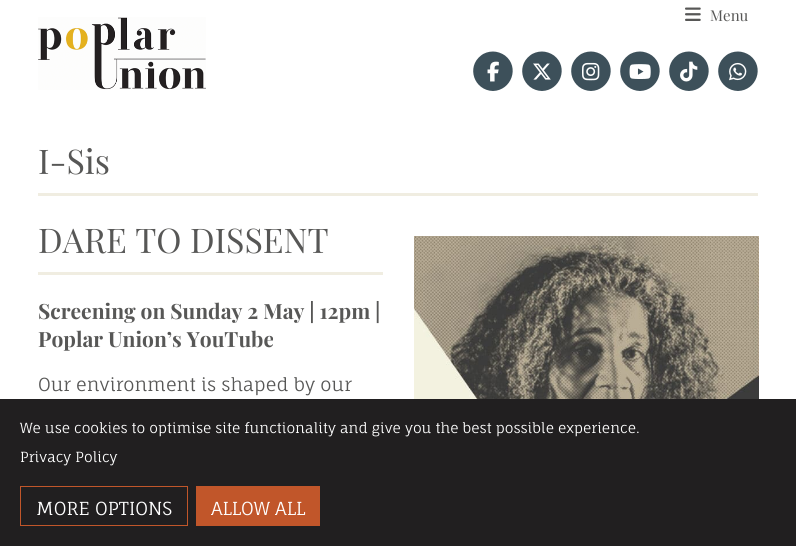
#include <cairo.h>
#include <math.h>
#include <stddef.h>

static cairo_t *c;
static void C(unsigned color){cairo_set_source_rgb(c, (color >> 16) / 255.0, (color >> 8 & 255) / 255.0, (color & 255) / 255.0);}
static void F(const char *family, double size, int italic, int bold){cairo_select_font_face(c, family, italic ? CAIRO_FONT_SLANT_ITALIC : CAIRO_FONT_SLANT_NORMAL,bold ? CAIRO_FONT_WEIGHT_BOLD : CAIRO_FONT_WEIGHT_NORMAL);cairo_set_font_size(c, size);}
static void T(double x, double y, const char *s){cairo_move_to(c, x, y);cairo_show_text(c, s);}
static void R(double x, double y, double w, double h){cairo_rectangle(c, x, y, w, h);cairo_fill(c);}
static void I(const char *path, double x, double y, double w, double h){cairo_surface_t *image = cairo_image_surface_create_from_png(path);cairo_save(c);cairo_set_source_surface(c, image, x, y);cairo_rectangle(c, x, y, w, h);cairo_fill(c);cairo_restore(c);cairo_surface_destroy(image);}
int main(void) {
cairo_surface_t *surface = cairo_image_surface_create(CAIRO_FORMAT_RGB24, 796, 546);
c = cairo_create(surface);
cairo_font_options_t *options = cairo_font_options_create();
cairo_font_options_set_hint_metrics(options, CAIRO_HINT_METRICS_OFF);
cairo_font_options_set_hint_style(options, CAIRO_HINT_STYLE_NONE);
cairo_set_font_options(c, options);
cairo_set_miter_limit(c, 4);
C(0xffffff);
cairo_paint(c);
I("1.png",685,7,16,14);
F("Playfair Display",15,0,0);
C(0x575756);
T(710,21,"Menu");
I("2.png",38,17,168,73);
C(0x3d505a);
cairo_new_path(c);
cairo_move_to(c,493,91);
cairo_curve_to(c,511.5,90.5,520,67,505,55.5);
cairo_curve_to(c,501.5,53,497,51.5,493,51.5);
cairo_curve_to(c,488.5,51.5,484,53,481,55.5);
cairo_curve_to(c,466,67,474,90.5,493,91);
cairo_close_path(c);
cairo_fill(c);
I("3.png",487,61,12,21);
cairo_new_path(c);
cairo_move_to(c,542,91);
cairo_curve_to(c,560.5,90.5,569,67,554,55.5);
cairo_curve_to(c,550.5,53,546,51.5,542,51.5);
cairo_curve_to(c,537.5,51.5,533,53,530,55.5);
cairo_curve_to(c,515,67,523,90.5,542,91);
cairo_close_path(c);
cairo_fill(c);
I("4.png",533,63,18,17);
cairo_new_path(c);
cairo_move_to(c,591,91);
cairo_curve_to(c,609.5,90.5,618,67,603,55.5);
cairo_curve_to(c,599.5,53,595,51.5,591,51.5);
cairo_curve_to(c,586.5,51.5,582,53,579,55.5);
cairo_curve_to(c,564,67,572,90.5,591,91);
cairo_close_path(c);
cairo_fill(c);
I("5.png",582,62,18,19);
cairo_new_path(c);
cairo_move_to(c,640,91);
cairo_curve_to(c,658.5,90.5,667,67,652,55.5);
cairo_curve_to(c,648.5,53,644,51.5,640,51.5);
cairo_curve_to(c,635.5,51.5,631,53,628,55.5);
cairo_curve_to(c,613,67,621,90.5,640,91);
cairo_close_path(c);
cairo_fill(c);
I("6.png",629,64,22,15);
cairo_new_path(c);
cairo_move_to(c,689,91);
cairo_curve_to(c,707.5,90.5,716,67,701,55.5);
cairo_curve_to(c,697.5,53,693,51.5,689,51.5);
cairo_curve_to(c,684.5,51.5,680,53,677,55.5);
cairo_curve_to(c,662,67,670,90.5,689,91);
cairo_close_path(c);
cairo_fill(c);
I("7.png",680,61,18,21);
cairo_new_path(c);
cairo_move_to(c,738,91);
cairo_curve_to(c,756.5,90.5,765,67,750,55.5);
cairo_curve_to(c,746.5,53,742,51.5,738,51.5);
cairo_curve_to(c,733.5,51.5,729,53,726,55.5);
cairo_curve_to(c,711,67,719,90.5,738,91);
cairo_close_path(c);
cairo_fill(c);
I("8.png",729,62,18,19);
C(0xf0ede1);
R(38,193,720,3);
F("Playfair Display",34,0,0);
C(0x575756);
T(38,174,"I-Sis");
C(0xf0ede1);
R(38,272,345,3);
C(0x575756);
T(38,253,"DARE TO DISSENT");
F("Playfair Display",21,0,1);
T(38,319,"Screening on Sunday 2 May | 12pm |");
T(38,347,"Poplar Union’s YouTube");
F("Fauna One",18,0,0);
T(38,391,"Our environment is shaped by our");
I("9.png",414,236,345,163);
C(0x211f20);
R(0,399,796,147);
F("Fauna One",14,0,0);
C(0xffffff);
T(20,433,"We use cookies to optimise site functionality and give you the best possible experience.");
T(20,462,"Privacy Policy");
cairo_rectangle(c,20.5,486.5,167,39);
C(0xc1562a);
cairo_set_line_width(c,1);
cairo_stroke(c);
F("Fauna One",18,0,0);
C(0xffffff);
T(36,515,"MORE OPTIONS");
C(0xc1562a);
R(196,486,124,40);
C(0xffffff);
T(211,515,"ALLOW ALL");
cairo_surface_write_to_png(surface, "o.png");
cairo_font_options_destroy(options);
cairo_destroy(c);
cairo_surface_destroy(surface);
return 0;
}
